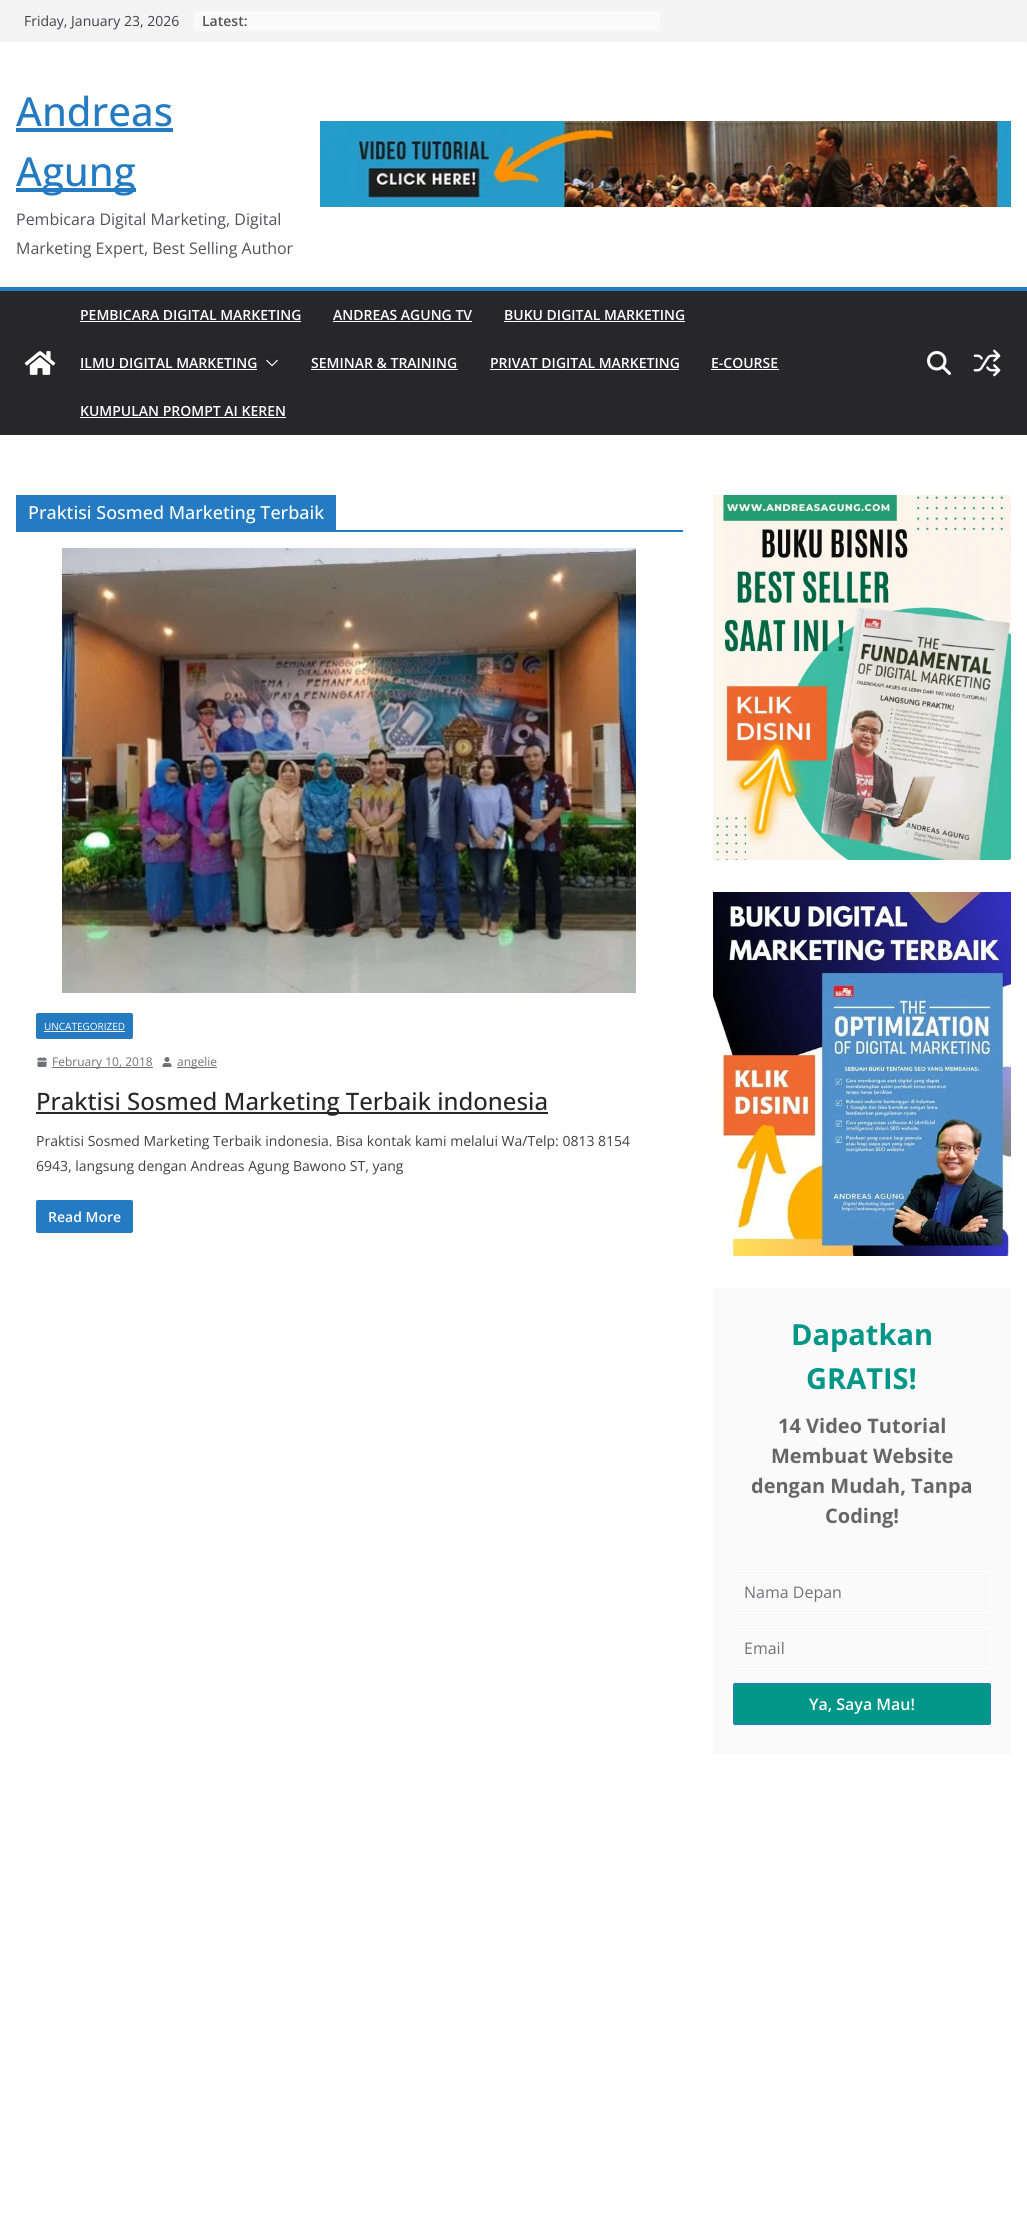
#include <cairo.h>
#include <math.h>
#include <stddef.h>

static cairo_t *c;
static void C(unsigned color){cairo_set_source_rgb(c, (color >> 16) / 255.0, (color >> 8 & 255) / 255.0, (color & 255) / 255.0);}
static void F(const char *family, double size, int italic, int bold){cairo_select_font_face(c, family, italic ? CAIRO_FONT_SLANT_ITALIC : CAIRO_FONT_SLANT_NORMAL,bold ? CAIRO_FONT_WEIGHT_BOLD : CAIRO_FONT_WEIGHT_NORMAL);cairo_set_font_size(c, size);}
static void T(double x, double y, const char *s){cairo_move_to(c, x, y);cairo_show_text(c, s);}
static void R(double x, double y, double w, double h){cairo_rectangle(c, x, y, w, h);cairo_fill(c);}
static void Q(double x, double y, double w, double h, double r){cairo_new_sub_path(c);cairo_arc(c, x + w - r, y + h - r, r, 0, M_PI / 2);cairo_arc(c, x + r, y + h - r, r, M_PI / 2, M_PI);cairo_arc(c, x + r, y + r, r, M_PI, 1.5 * M_PI);cairo_arc(c, x + w - r, y + r, r, 1.5 * M_PI, 2 * M_PI);cairo_close_path(c);}
static void S(double x, double y, double w, double h, double r, double blur, double alpha){cairo_push_group_with_content(c, CAIRO_CONTENT_ALPHA);cairo_set_operator(c, CAIRO_OPERATOR_SOURCE);for (int i = 15; i >= -15 && fmin(w, h) + blur * i / 3 > 0; i -= 2) {double e = blur * i / 6;cairo_set_source_rgba(c, 0, 0, 0, alpha * erfc((i - 1) / 8.5) / 2);Q(x - e, y - e, w + 2 * e, h + 2 * e, fmax(0, fmin(r + e + blur * .6, fmin(w, h) / 2 + e)));cairo_fill(c);}cairo_pattern_t *soft = cairo_pop_group(c);cairo_mask(c, soft);cairo_pattern_destroy(soft);}
static void I(const char *path, double x, double y, double w, double h){cairo_surface_t *image = cairo_image_surface_create_from_png(path);cairo_save(c);cairo_set_source_surface(c, image, x, y);cairo_rectangle(c, x, y, w, h);cairo_fill(c);cairo_restore(c);cairo_surface_destroy(image);}
int main(void) {
cairo_surface_t *surface = cairo_image_surface_create(CAIRO_FORMAT_RGB24, 1027, 2225);
c = cairo_create(surface);
cairo_font_options_t *options = cairo_font_options_create();
cairo_font_options_set_hint_metrics(options, CAIRO_HINT_METRICS_OFF);
cairo_font_options_set_hint_style(options, CAIRO_HINT_STYLE_NONE);
cairo_set_font_options(c, options);
cairo_set_miter_limit(c, 4);
C(0xffffff);
cairo_paint(c);
C(0x000000);
S(0,0,1027,41,0,1,.1);
C(0xf4f4f5);
R(0,0,1027,41);
F("Open Sans",14,0,0);
C(0x3f3f46);
T(24,26,"Friday, January 23, 2026");
C(0xfafafa);
R(194,11,466,20);
F("Open Sans SemiBold",14,0,0);
C(0x555555);
T(202,26,"Latest:");
F("Open Sans Medium",40,0,0);
C(0x257bc1);
T(16,126,"Andreas");
R(16,128,157,4);
R(16,188,120,4);
T(16,186,"Agung");
F("Open Sans",16,0,0);
C(0x52525b);
T(16,225,"Pembicara Digital Marketing, Digital");
T(16,254,"Marketing Expert, Best Selling Author");
I("1.png",320,121,691,86);
C(0x27272a);
R(0,291,1027,144);
C(0x257bc1);
R(0,287,1027,4);
I("2.png",24,351,32,24);
F("Open Sans SemiBold",14,0,0);
C(0xffffff);
T(80,320,"PEMBICARA DIGITAL MARKETING");
R(80,321,221,1);
T(333,320,"ANDREAS AGUNG TV");
R(333,321,139,1);
T(504,320,"BUKU DIGITAL MARKETING");
R(504,321,181,1);
T(80,368,"ILMU DIGITAL MARKETING");
R(80,369,177,1);
I("3.png",266,359,12,8);
T(311,368,"SEMINAR & TRAINING");
R(311,369,147,1);
T(490,368,"PRIVAT DIGITAL MARKETING");
R(490,369,189,1);
T(711,368,"E-COURSE");
R(711,369,68,1);
T(80,416,"KUMPULAN PROMPT AI KEREN");
R(80,417,206,1);
I("4.png",927,351,24,24);
I("5.png",973,349,28,28);
C(0x257bc1);
R(16,530,667,2);
R(16,495,320,35);
F("Open Sans Medium",18,0,0);
C(0xffffff);
T(28,519,"Praktisi Sosmed Marketing Terbaik");
I("6.png",62,548,574,445);
C(0x257bc1);
Q(36,1013,97,26,2);
cairo_fill(c);
F("Open Sans",10,0,0);
C(0xffffff);
T(44,1030,"UNCATEGORIZED");
R(44,1031,81,1);
I("7.png",37,1057,10,10);
C(0x71717a);
R(52,1067,101,1);
F("Open Sans",12,0,0);
T(52,1066,"February 10, 2018");
I("8.png",162,1057,10,10);
R(177,1067,40,1);
T(177,1066,"angelie");
C(0x27272a);
R(36,1112,512,2);
F("Open Sans Medium",24,0,0);
T(36,1110,"Praktisi Sosmed Marketing Terbaik indonesia");
F("Open Sans",14,0,0);
C(0x3f3f46);
T(36,1146,"Praktisi Sosmed Marketing Terbaik indonesia. Bisa kontak kami melalui Wa/Telp: 0813 8154");
T(36,1171,"6943, langsung dengan Andreas Agung Bawono ST, yang");
C(0x257bc1);
Q(36,1200,97,33,2);
cairo_fill(c);
F("Open Sans SemiBold",14,0,0);
C(0xffffff);
T(48,1222,"Read More");
I("9.png",713,495,298,365);
I("10.png",713,892,298,364);
C(0xfafafa);
R(713,1288,298,467);
F("Open Sans",29,0,1);
C(0x009688);
T(791,1345,"Dapatkan");
T(806,1389,"GRATIS!");
F("Open Sans",20,0,1);
C(0x666666);
T(778,1433,"14 Video Tutorial");
T(771,1463,"Membuat Website");
T(751,1493,"dengan Mudah, Tanpa");
T(825,1523,"Coding!");
Q(733.5,1571.5,257,41,3.5);
C(0xffffff);
cairo_set_line_width(c,1);
cairo_stroke(c);
F("Open Sans",16,0,0);
C(0x71717a);
T(744,1598,"Nama Depan");
Q(733.5,1627.5,257,41,3.5);
C(0xffffff);
cairo_stroke(c);
C(0x71717a);
T(744,1654,"Email");
C(0x009688);
Q(733.5,1683.5,257,41,1.5);
cairo_fill_preserve(c);
C(0x257bc1);
cairo_stroke(c);
F("Open Sans SemiBold",16,0,0);
C(0xffffff);
T(809,1710,"Ya, Saya Mau!");
cairo_surface_write_to_png(surface, "o.png");
cairo_font_options_destroy(options);
cairo_destroy(c);
cairo_surface_destroy(surface);
return 0;
}
